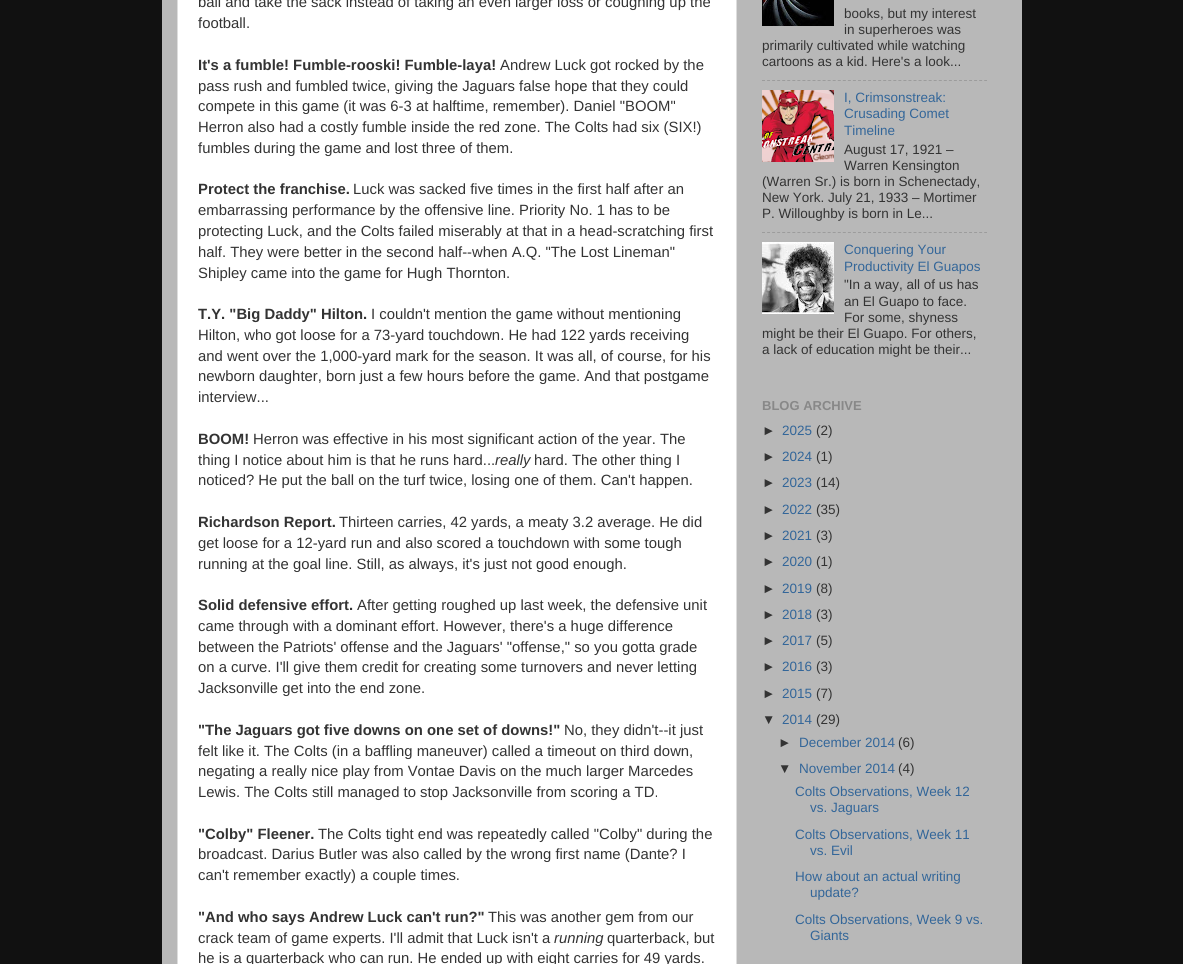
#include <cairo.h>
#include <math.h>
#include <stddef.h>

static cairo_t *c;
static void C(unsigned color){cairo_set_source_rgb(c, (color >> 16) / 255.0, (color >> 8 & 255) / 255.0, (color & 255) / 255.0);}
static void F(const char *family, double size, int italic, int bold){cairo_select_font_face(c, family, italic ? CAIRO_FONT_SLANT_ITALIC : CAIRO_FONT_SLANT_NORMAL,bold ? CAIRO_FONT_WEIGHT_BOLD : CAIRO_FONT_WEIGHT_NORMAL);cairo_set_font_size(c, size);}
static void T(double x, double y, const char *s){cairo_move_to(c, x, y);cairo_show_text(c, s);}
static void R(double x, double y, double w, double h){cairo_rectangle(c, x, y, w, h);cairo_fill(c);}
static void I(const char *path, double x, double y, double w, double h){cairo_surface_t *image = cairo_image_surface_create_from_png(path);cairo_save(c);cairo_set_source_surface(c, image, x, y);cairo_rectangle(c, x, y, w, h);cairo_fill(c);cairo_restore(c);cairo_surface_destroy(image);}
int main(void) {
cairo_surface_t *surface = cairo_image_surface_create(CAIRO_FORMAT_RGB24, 1183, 964);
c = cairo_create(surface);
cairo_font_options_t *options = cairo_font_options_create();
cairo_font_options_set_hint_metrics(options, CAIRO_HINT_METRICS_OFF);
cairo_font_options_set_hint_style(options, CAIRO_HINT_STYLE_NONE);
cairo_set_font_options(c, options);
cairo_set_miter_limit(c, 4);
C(0x111111);
cairo_paint(c);
C(0xb8b8b8);
R(162,0,860,964);
C(0xffffff);
cairo_rectangle(c,177.5,-.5,559,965);
cairo_fill_preserve(c);
C(0xdddddd);
cairo_set_line_width(c,1);
cairo_stroke(c);
F("Liberation Sans",14.85,0,0);
C(0x333333);
T(198,7,"ball and take the sack instead of taking an even larger loss or coughing up the");
T(198,28,"football.");
F("Liberation Sans",14.85,0,1);
T(198,70,"It's a fumble! Fumble-rooski! Fumble-laya!");
F("Liberation Sans",14.85,0,0);
T(500,70,"Andrew Luck got rocked by the");
T(198,91,"pass rush and fumbled twice, giving the Jaguars false hope that they could");
T(198,111,"compete in this game (it was 6-3 at halftime, remember). Daniel \"BOOM\"");
T(198,132,"Herron also had a costly fumble inside the red zone. The Colts had six (SIX!)");
T(198,153,"fumbles during the game and lost three of them.");
F("Liberation Sans",14.85,0,1);
T(198,194,"Protect the franchise.");
F("Liberation Sans",14.85,0,0);
T(353,194,"Luck was sacked five times in the first half after an");
T(198,215,"embarrassing performance by the offensive line. Priority No. 1 has to be");
T(198,236,"protecting Luck, and the Colts failed miserably at that in a head-scratching first");
T(198,257,"half. They were better in the second half--when A.Q. \"The Lost Lineman\"");
T(198,278,"Shipley came into the game for Hugh Thornton.");
F("Liberation Sans",14.85,0,1);
T(198,319,"T.Y. \"Big Daddy\" Hilton.");
F("Liberation Sans",14.85,0,0);
T(371,319,"I couldn't mention the game without mentioning");
T(198,340,"Hilton, who got loose for a 73-yard touchdown. He had 122 yards receiving");
T(198,361,"and went over the 1,000-yard mark for the season. It was all, of course, for his");
T(198,381,"newborn daughter, born just a few hours before the game. And that postgame");
T(198,402,"interview...");
F("Liberation Sans",14.85,0,1);
T(198,444,"BOOM!");
F("Liberation Sans",14.85,0,0);
T(253,444,"Herron was effective in his most significant action of the year. The");
T(198,465,"thing I notice about him is that he runs hard...");
F("Liberation Sans",14.85,1,0);
T(495,465,"really");
F("Liberation Sans",14.85,0,0);
T(534,465,"hard. The other thing I");
T(198,485,"noticed? He put the ball on the turf twice, losing one of them. Can't happen.");
F("Liberation Sans",14.85,0,1);
T(198,527,"Richardson Report.");
F("Liberation Sans",14.85,0,0);
T(339,527,"Thirteen carries, 42 yards, a meaty 3.2 average. He did");
T(198,548,"get loose for a 12-yard run and also scored a touchdown with some tough");
T(198,569,"running at the goal line. Still, as always, it's just not good enough.");
F("Liberation Sans",14.85,0,1);
T(198,610,"Solid defensive effort.");
F("Liberation Sans",14.85,0,0);
T(357,610,"After getting roughed up last week, the defensive unit");
T(198,631,"came through with a dominant effort. However, there's a huge difference");
T(198,652,"between the Patriots' offense and the Jaguars' \"offense,\" so you gotta grade");
T(198,672,"on a curve. I'll give them credit for creating some turnovers and never letting");
T(198,693,"Jacksonville get into the end zone.");
F("Liberation Sans",14.85,0,1);
T(198,735,"\"The Jaguars got five downs on one set of downs!\"");
F("Liberation Sans",14.85,0,0);
T(564,735,"No, they didn't--it just");
T(198,756,"felt like it. The Colts (in a baffling maneuver) called a timeout on third down,");
T(198,776,"negating a really nice play from Vontae Davis on the much larger Marcedes");
T(198,797,"Lewis. The Colts still managed to stop Jacksonville from scoring a TD.");
F("Liberation Sans",14.85,0,1);
T(198,839,"\"Colby\" Fleener.");
F("Liberation Sans",14.85,0,0);
T(318,839,"The Colts tight end was repeatedly called \"Colby\" during the");
T(198,859,"broadcast. Darius Butler was also called by the wrong first name (Dante? I");
T(198,880,"can't remember exactly) a couple times.");
F("Liberation Sans",14.85,0,1);
T(198,922,"\"And who says Andrew Luck can't run?\"");
F("Liberation Sans",14.85,0,0);
T(488,922,"This was another gem from our");
T(198,943,"crack team of game experts. I'll admit that Luck isn't a");
F("Liberation Sans",14.85,1,0);
T(554,943,"running");
F("Liberation Sans",14.85,0,0);
T(607,943,"quarterback, but");
T(198,963,"he is a quarterback who can run. He ended up with eight carries for 49 yards.");
I("1.png",762,0,72,26);
F("Liberation Sans",13.5,0,0);
T(844,18,"books, but my interest");
T(844,34,"in superheroes was");
T(762,50,"primarily cultivated while watching");
T(762,66,"cartoons as a kid. Here's a look...");
cairo_new_path(c);
cairo_move_to(c,762,80.5);
cairo_line_to(c,987,80.5);
C(0x9c9c9c);
cairo_set_dash(c,(double[]){3,2.05},2,0);
cairo_stroke(c);
I("2.png",762,90,72,72);
C(0x336699);
T(844,102,"I, Crimsonstreak:");
T(844,118,"Crusading Comet");
T(844,135,"Timeline");
C(0x333333);
T(844,154,"August 17, 1921 –");
T(844,170,"Warren Kensington");
T(762,186,"(Warren Sr.) is born in Schenectady,");
T(762,202,"New York. July 21, 1933 – Mortimer");
T(762,218,"P. Willoughby is born in Le...");
cairo_new_path(c);
cairo_move_to(c,762,232.5);
cairo_line_to(c,987,232.5);
C(0x9c9c9c);
cairo_stroke(c);
I("3.png",762,242,72,72);
C(0x336699);
T(844,254,"Conquering Your");
T(844,271,"Productivity El Guapos");
C(0x333333);
T(844,289,"\"In a way, all of us has");
T(844,306,"an El Guapo to face.");
T(844,322,"For some, shyness");
T(762,338,"might be their El Guapo. For others,");
T(762,354,"a lack of education might be their...");
F("Liberation Sans",13,0,1);
C(0x888888);
T(762,410,"BLOG ARCHIVE");
F("Liberation Sans",13.5,0,0);
C(0x333333);
T(762,435,"►");
C(0x336699);
T(782,435,"2025");
C(0x333333);
T(816,435,"(2)");
T(762,461,"►");
C(0x336699);
T(782,461,"2024");
C(0x333333);
T(816,461,"(1)");
T(762,487,"►");
C(0x336699);
T(782,487,"2023");
C(0x333333);
T(816,487,"(14)");
T(762,514,"►");
C(0x336699);
T(782,514,"2022");
C(0x333333);
T(816,514,"(35)");
T(762,540,"►");
C(0x336699);
T(782,540,"2021");
C(0x333333);
T(816,540,"(3)");
T(762,566,"►");
C(0x336699);
T(782,566,"2020");
C(0x333333);
T(816,566,"(1)");
T(762,593,"►");
C(0x336699);
T(782,593,"2019");
C(0x333333);
T(816,593,"(8)");
T(762,619,"►");
C(0x336699);
T(782,619,"2018");
C(0x333333);
T(816,619,"(3)");
T(762,645,"►");
C(0x336699);
T(782,645,"2017");
C(0x333333);
T(816,645,"(5)");
T(762,671,"►");
C(0x336699);
T(782,671,"2016");
C(0x333333);
T(816,671,"(3)");
T(762,698,"►");
C(0x336699);
T(782,698,"2015");
C(0x333333);
T(816,698,"(7)");
T(762,724,"▼");
C(0x336699);
T(782,724,"2014");
C(0x333333);
T(816,724,"(29)");
T(778,747,"►");
C(0x336699);
T(799,747,"December 2014");
C(0x333333);
T(898,747,"(6)");
T(778,773,"▼");
C(0x336699);
T(799,773,"November 2014");
C(0x333333);
T(898,773,"(4)");
C(0x336699);
T(795,796,"Colts Observations, Week 12");
T(810,812,"vs. Jaguars");
T(795,839,"Colts Observations, Week 11");
T(810,855,"vs. Evil");
T(795,881,"How about an actual writing");
T(810,897,"update?");
T(795,924,"Colts Observations, Week 9 vs.");
T(810,940,"Giants");
cairo_surface_write_to_png(surface, "o.png");
cairo_font_options_destroy(options);
cairo_destroy(c);
cairo_surface_destroy(surface);
return 0;
}
